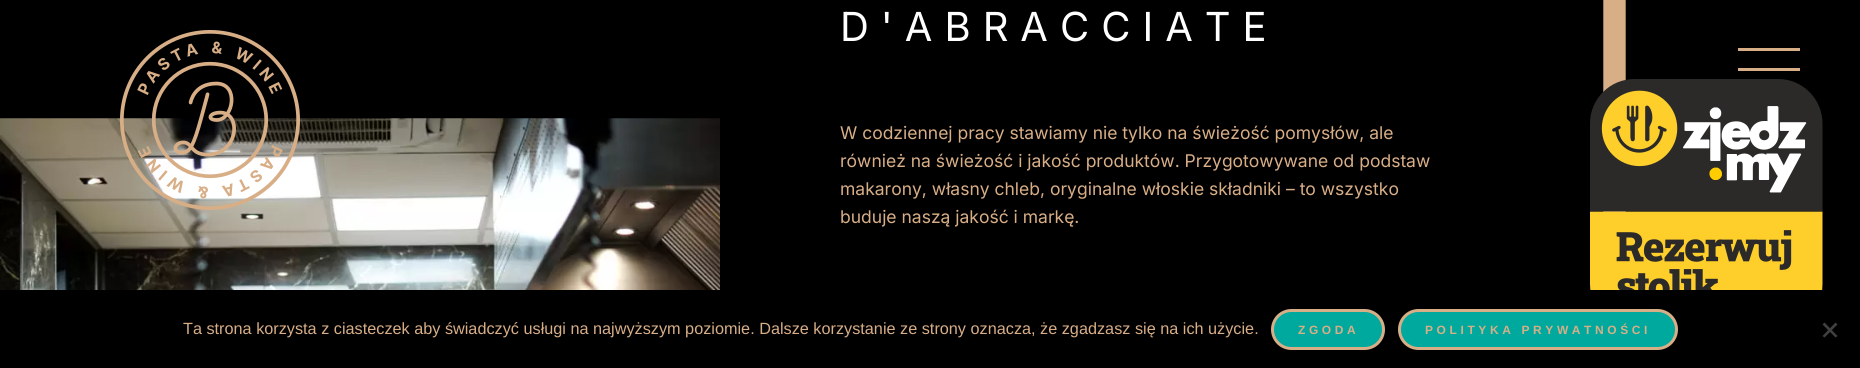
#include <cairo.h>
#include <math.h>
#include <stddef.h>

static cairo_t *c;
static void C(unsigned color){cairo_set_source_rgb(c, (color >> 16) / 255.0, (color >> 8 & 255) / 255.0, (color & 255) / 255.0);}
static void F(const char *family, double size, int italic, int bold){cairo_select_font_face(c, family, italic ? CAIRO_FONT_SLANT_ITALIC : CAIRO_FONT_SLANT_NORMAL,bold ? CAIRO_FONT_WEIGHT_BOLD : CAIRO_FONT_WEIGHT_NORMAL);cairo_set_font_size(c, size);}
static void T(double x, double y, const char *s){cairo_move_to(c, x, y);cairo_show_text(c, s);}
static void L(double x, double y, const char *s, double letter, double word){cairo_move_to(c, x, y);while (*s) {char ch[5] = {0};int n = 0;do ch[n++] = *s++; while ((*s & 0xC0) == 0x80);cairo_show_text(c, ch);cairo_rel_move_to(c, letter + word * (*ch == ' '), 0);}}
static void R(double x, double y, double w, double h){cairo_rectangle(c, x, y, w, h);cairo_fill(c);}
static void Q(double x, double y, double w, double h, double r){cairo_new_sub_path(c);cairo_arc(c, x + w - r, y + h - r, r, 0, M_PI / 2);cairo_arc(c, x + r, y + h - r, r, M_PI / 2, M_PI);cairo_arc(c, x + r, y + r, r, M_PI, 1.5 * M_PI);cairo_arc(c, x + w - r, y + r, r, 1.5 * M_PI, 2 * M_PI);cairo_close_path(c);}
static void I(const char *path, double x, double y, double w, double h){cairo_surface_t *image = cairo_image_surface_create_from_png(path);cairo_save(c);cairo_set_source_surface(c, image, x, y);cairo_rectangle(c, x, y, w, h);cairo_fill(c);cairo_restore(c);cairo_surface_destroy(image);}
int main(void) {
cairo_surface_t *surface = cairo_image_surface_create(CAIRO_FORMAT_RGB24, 1860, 368);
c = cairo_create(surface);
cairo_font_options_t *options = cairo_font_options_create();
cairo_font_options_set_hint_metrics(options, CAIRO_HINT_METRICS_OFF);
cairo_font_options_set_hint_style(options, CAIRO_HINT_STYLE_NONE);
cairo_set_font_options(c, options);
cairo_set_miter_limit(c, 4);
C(0x000000);
cairo_paint(c);
I("2.png",0,118,720,172);
I("1.png",120,30,180,180);
F("Inter",40,0,0);
C(0xffffff);
L(840,41,"D'ABRACCIATE",12,0);
F("Inter",17.5,0,0);
C(0xd8ae87);
T(840,139,"W codziennej pracy stawiamy nie tylko na świeżość pomysłów, ale");
T(840,167,"również na świeżość i jakość produktów. Przygotowywane od podstaw");
T(840,195,"makarony, własny chleb, oryginalne włoskie składniki – to wszystko");
T(840,223,"buduje naszą jakość i markę.");
cairo_new_path(c);
cairo_move_to(c,1614.5,-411);
cairo_line_to(c,1614.5,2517.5);
cairo_set_line_width(c,22.4);
cairo_stroke(c);
R(1738,48,62,3);
R(1738,68,62,3);
I("3.png",1590,79,233,211);
C(0x000000);
R(1603,290,23,78);
F("Liberation Sans",16.25,0,0);
C(0xd8ae87);
T(183,334,"Ta strona korzysta z ciasteczek aby świadczyć usługi na najwyższym poziomie. Dalsze korzystanie ze strony oznacza, że zgadzasz się na ich użycie.");
C(0x00a99d);
Q(1272.5,310.5,111,38,19);
cairo_fill_preserve(c);
C(0xd8ae87);
cairo_set_line_width(c,3);
cairo_stroke(c);
F("Liberation Sans",12,0,1);
L(1298,334,"ZGODA",3.6,0);
C(0x00a99d);
Q(1399.5,310.5,277,38,19);
cairo_fill_preserve(c);
C(0xd8ae87);
cairo_stroke(c);
L(1425,334,"POLITYKA PRYWATNOŚCI",3.6,0);
C(0x404040);
cairo_new_path(c);
cairo_move_to(c,1835.5,322.5);
cairo_line_to(c,1837.5,324.5);
cairo_line_to(c,1824.5,337.5);
cairo_line_to(c,1822.5,336);
cairo_close_path(c);
cairo_fill(c);
cairo_new_path(c);
cairo_move_to(c,1822.5,324.5);
cairo_line_to(c,1824.5,322.5);
cairo_line_to(c,1837.5,336);
cairo_line_to(c,1835.5,337.5);
cairo_close_path(c);
cairo_fill(c);
cairo_surface_write_to_png(surface, "o.png");
cairo_font_options_destroy(options);
cairo_destroy(c);
cairo_surface_destroy(surface);
return 0;
}
